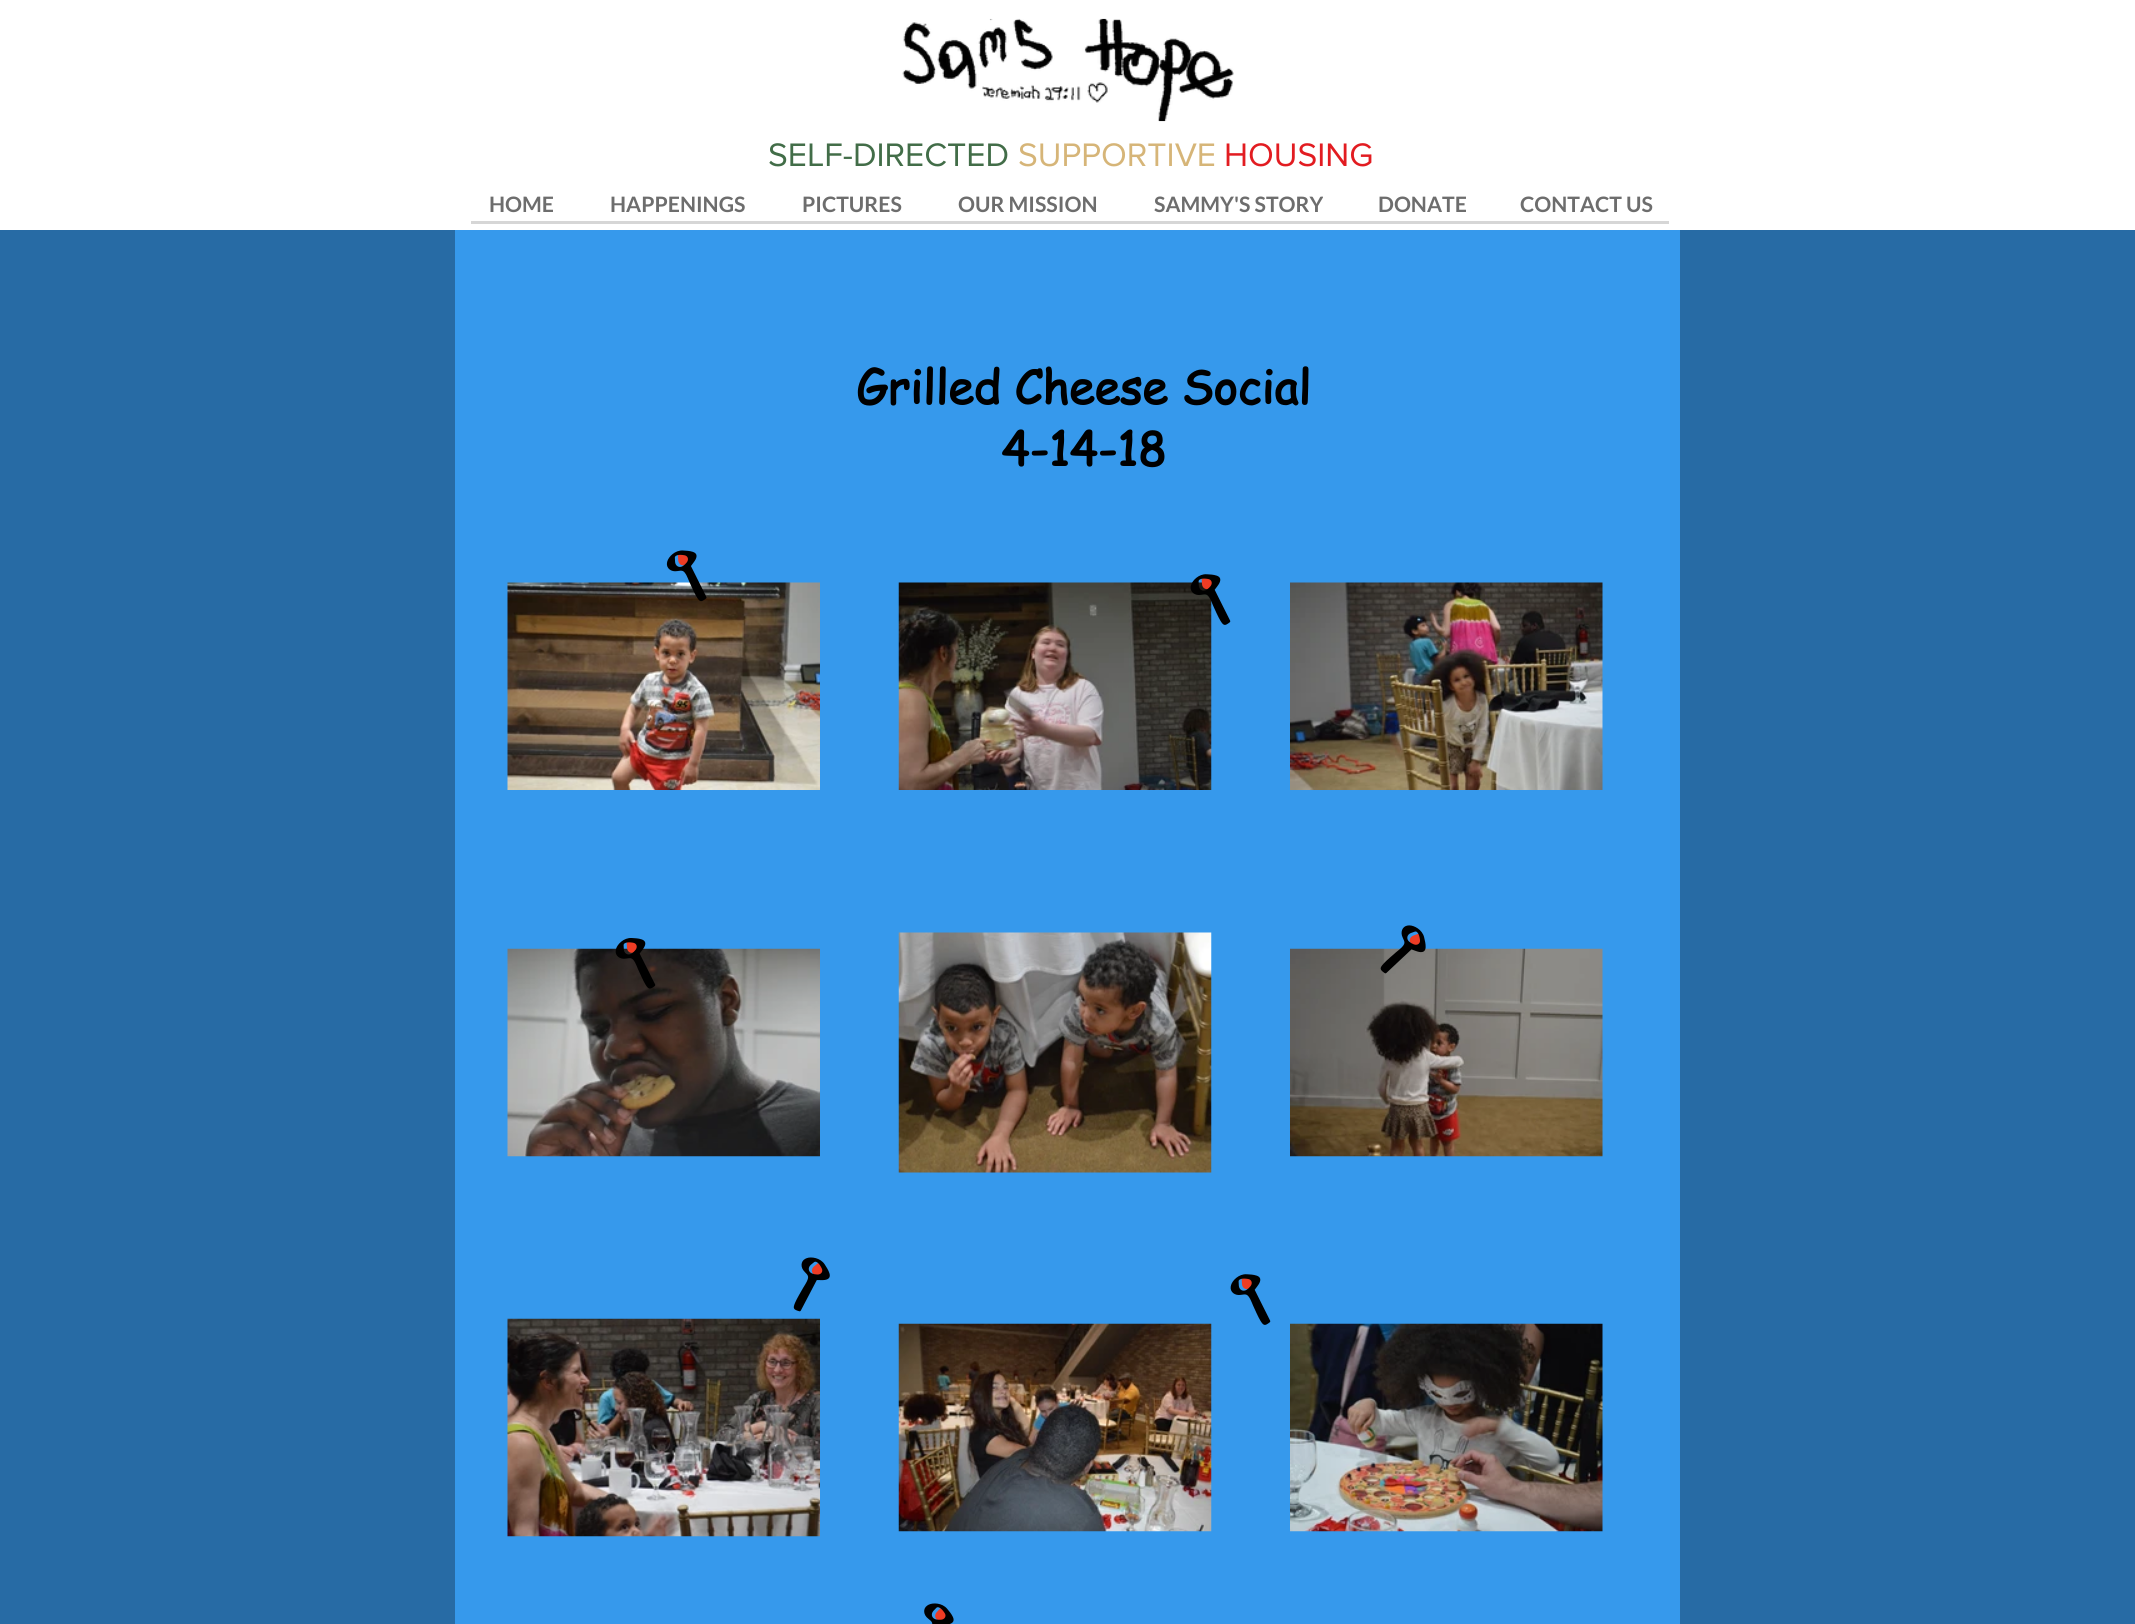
#include <cairo.h>
#include <math.h>
#include <stddef.h>

static cairo_t *c;
static void C(unsigned color){cairo_set_source_rgb(c, (color >> 16) / 255.0, (color >> 8 & 255) / 255.0, (color & 255) / 255.0);}
static void F(const char *family, double size, int italic, int bold){cairo_select_font_face(c, family, italic ? CAIRO_FONT_SLANT_ITALIC : CAIRO_FONT_SLANT_NORMAL,bold ? CAIRO_FONT_WEIGHT_BOLD : CAIRO_FONT_WEIGHT_NORMAL);cairo_set_font_size(c, size);}
static void T(double x, double y, const char *s){cairo_move_to(c, x, y);cairo_show_text(c, s);}
static void R(double x, double y, double w, double h){cairo_rectangle(c, x, y, w, h);cairo_fill(c);}
static void I(const char *path, double x, double y, double w, double h){cairo_surface_t *image = cairo_image_surface_create_from_png(path);cairo_save(c);cairo_set_source_surface(c, image, x, y);cairo_rectangle(c, x, y, w, h);cairo_fill(c);cairo_restore(c);cairo_surface_destroy(image);}
int main(void) {
cairo_surface_t *surface = cairo_image_surface_create(CAIRO_FORMAT_RGB24, 2135, 1624);
c = cairo_create(surface);
cairo_font_options_t *options = cairo_font_options_create();
cairo_font_options_set_hint_metrics(options, CAIRO_HINT_METRICS_OFF);
cairo_font_options_set_hint_style(options, CAIRO_HINT_STYLE_NONE);
cairo_set_font_options(c, options);
cairo_set_miter_limit(c, 4);
C(0x276ba5);
cairo_paint(c);
C(0xffffff);
R(0,0,2135,230);
I("1.png",902,18,332,104);
F("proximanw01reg",33.75,0,0);
C(0x426d48);
T(768,166,"SELF-DIRECTED");
C(0xd6b578);
T(1018,166,"SUPPORTIVE");
C(0xe21c21);
T(1224,166,"HOUSING");
F("Lato",21.25,0,1);
C(0x6d6d6d);
T(489,212,"HOME");
T(610,212,"HAPPENINGS");
T(802,212,"PICTURES");
T(958,212,"OUR MISSION");
T(1154,212,"SAMMY'S STORY");
T(1378,212,"DONATE");
T(1520,212,"CONTACT US");
C(0xd6d6d6);
R(471,221,1198,3);
C(0x3699ec);
R(455,230,1225,1394);
F("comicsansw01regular",46.25,0,1);
C(0x000000);
T(856,404,"Grilled Cheese Social");
T(1001,466,"4-14-18");
I("4.png",507,582,313,208);
I("2.png",666,550,41,52);
I("5.png",898,582,314,208);
I("3.png",1190,574,41,51);
I("6.png",1290,582,313,208);
I("7.png",507,948,313,209);
I("8.png",898,932,314,241);
I("9.png",1290,948,313,209);
I("10.png",507,1318,313,219);
I("11.png",898,1323,314,209);
I("12.png",1290,1323,313,209);
I("13.png",615,938,41,51);
I("14.png",1380,925,46,49);
I("15.png",793,1257,37,55);
I("16.png",1230,1274,41,51);
I("17.png",924,1603,30,21);
cairo_surface_write_to_png(surface, "o.png");
cairo_font_options_destroy(options);
cairo_destroy(c);
cairo_surface_destroy(surface);
return 0;
}
